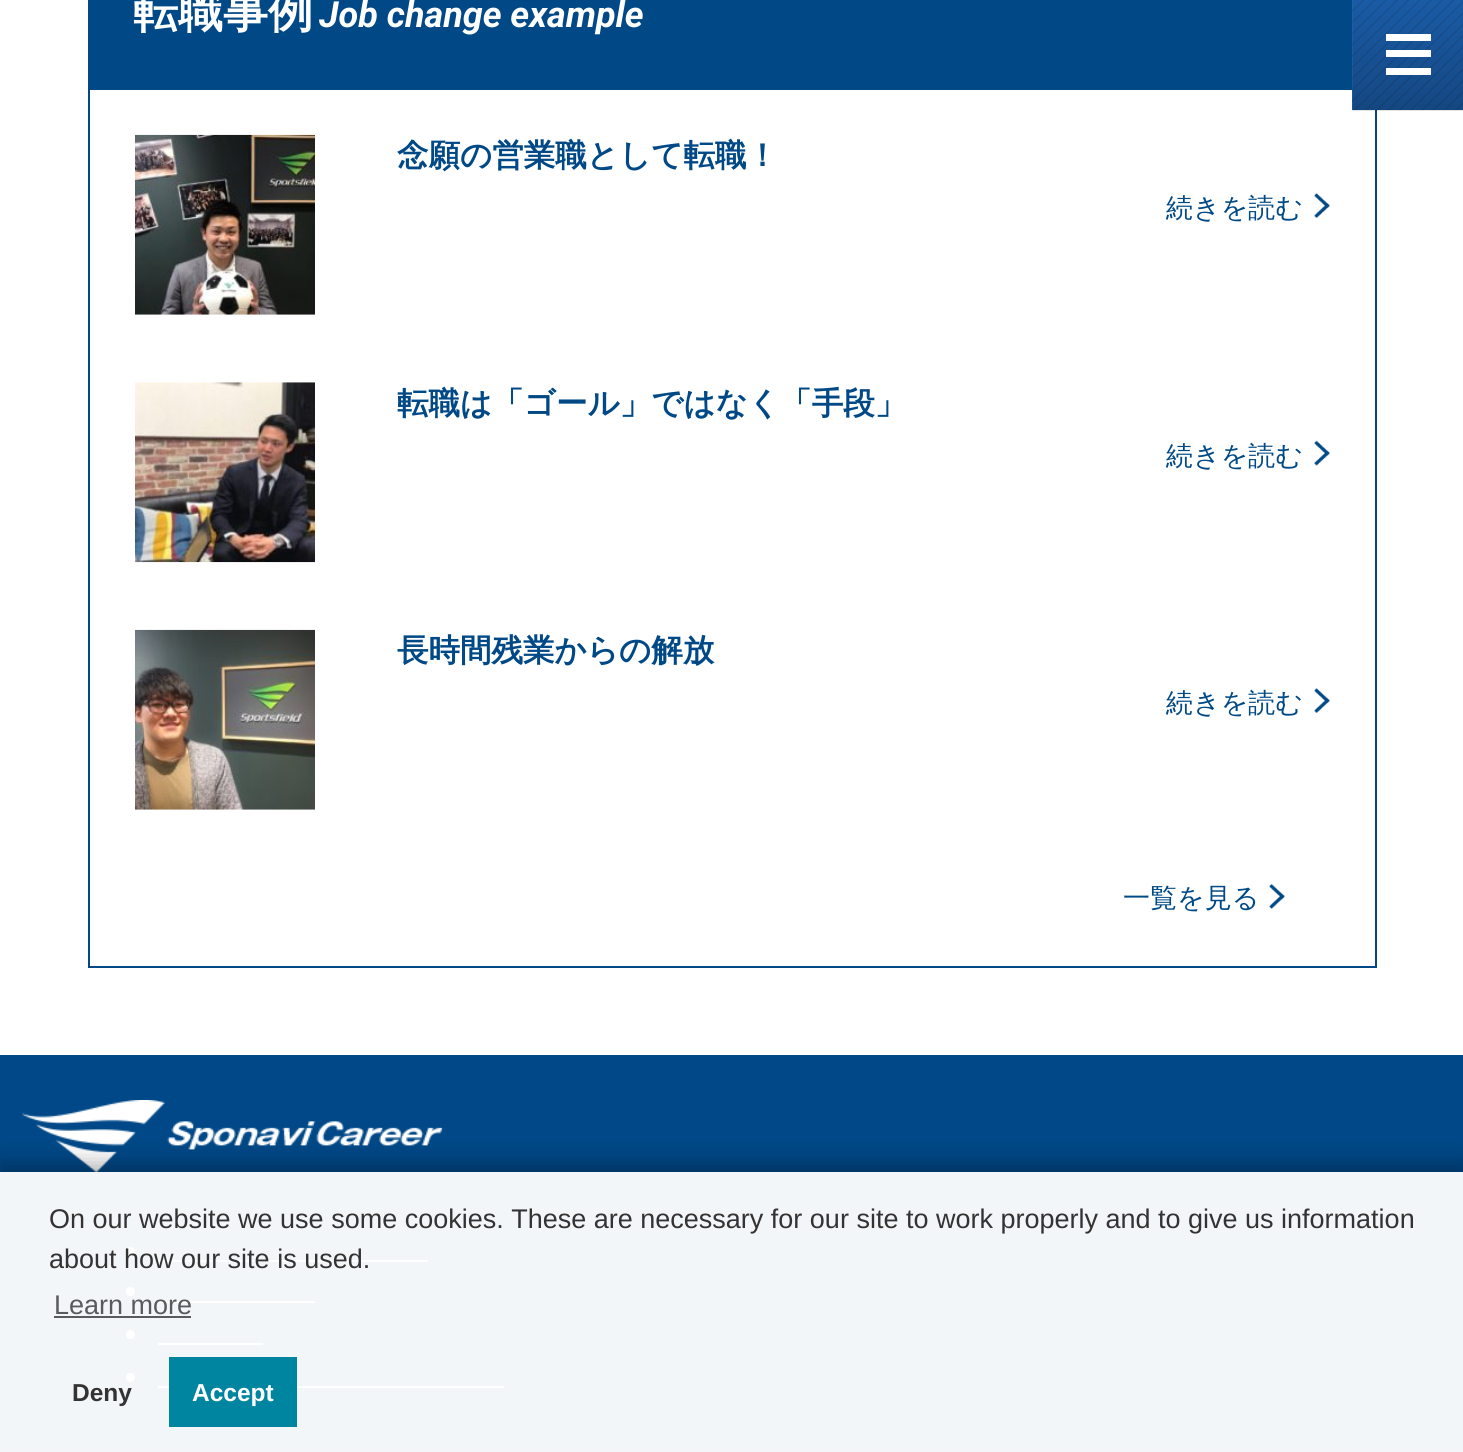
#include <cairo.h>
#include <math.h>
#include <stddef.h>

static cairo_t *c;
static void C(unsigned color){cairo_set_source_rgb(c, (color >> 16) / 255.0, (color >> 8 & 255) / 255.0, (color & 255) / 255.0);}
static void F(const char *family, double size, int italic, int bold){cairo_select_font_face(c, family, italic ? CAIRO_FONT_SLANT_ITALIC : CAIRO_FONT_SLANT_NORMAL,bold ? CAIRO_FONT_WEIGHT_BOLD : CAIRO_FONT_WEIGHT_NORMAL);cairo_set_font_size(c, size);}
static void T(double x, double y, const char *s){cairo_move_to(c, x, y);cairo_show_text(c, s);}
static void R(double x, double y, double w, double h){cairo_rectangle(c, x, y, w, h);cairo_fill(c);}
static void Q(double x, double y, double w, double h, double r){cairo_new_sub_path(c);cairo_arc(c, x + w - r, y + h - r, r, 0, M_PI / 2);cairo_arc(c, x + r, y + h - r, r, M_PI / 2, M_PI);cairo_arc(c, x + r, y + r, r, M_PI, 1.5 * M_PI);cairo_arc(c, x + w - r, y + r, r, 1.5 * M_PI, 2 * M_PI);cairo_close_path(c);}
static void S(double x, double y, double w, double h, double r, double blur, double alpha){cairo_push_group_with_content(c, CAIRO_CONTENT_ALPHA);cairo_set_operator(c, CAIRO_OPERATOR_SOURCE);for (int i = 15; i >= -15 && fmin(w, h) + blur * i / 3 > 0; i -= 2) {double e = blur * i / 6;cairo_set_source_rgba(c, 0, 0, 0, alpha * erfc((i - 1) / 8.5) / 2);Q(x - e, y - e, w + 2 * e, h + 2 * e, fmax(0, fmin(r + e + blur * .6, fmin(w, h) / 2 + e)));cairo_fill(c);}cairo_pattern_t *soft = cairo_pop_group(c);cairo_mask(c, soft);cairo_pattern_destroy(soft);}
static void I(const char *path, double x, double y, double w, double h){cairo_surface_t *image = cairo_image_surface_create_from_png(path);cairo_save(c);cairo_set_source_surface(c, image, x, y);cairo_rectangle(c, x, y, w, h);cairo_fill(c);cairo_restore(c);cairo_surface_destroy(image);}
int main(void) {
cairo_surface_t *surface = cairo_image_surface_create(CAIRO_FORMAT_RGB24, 1463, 1452);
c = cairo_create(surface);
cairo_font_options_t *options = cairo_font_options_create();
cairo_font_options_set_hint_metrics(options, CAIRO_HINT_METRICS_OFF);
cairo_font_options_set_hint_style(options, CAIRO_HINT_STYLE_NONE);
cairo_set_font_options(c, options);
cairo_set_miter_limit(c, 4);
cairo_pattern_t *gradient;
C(0xffffff);
cairo_paint(c);
C(0x004986);
R(88,0,1264,88);
F("WenQuanYi Zen Hei",45,0,1);
C(0xffffff);
T(133,27,"転職事例");
F("Roboto",36,1,1);
T(319,27,"Job change example");
cairo_rectangle(c,89,89,1287,878);
C(0x004986);
cairo_stroke(c);
I("1.png",135,134,180,181);
F("WenQuanYi Zen Hei",31.5,0,1);
T(397,166,"念願の営業職として転職！");
I("2.png",1314,193,16,25);
F("WenQuanYi Zen Hei Medium",27,0,0);
T(1166,217,"続きを読む");
I("3.png",135,382,180,181);
F("WenQuanYi Zen Hei",31.5,0,1);
T(397,414,"転職は「ゴール」ではなく「手段」");
I("4.png",1314,440,16,26);
F("WenQuanYi Zen Hei Medium",27,0,0);
T(1166,465,"続きを読む");
I("5.png",135,629,180,181);
F("WenQuanYi Zen Hei",31.5,0,1);
T(397,661,"長時間残業からの解放");
I("2.png",1314,688,16,25);
F("WenQuanYi Zen Hei Medium",27,0,0);
T(1166,712,"続きを読む");
I("6.png",1269,884,16,25);
T(1123,907,"一覧を見る");
C(0x2277d8);
R(1352,0,111,110);
I("7.png",1352,0,111,111);
C(0xffffff);
R(1386,34,45,7);
R(1386,50,45,7);
R(1386,68,45,7);
gradient = cairo_pattern_create_linear(732,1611,732,1055);
cairo_pattern_add_color_stop_rgba(gradient,0,0,0.169,0.318,1);
cairo_pattern_add_color_stop_rgba(gradient,.8,0,0.282,0.529,1);
cairo_set_source(c,gradient);
cairo_pattern_destroy(gradient);
R(0,1055,1463,397);
I("8.png",22,1100,421,72);
C(0xffffff);
cairo_arc(c,130.5,1251.5,4.5,0,2 * M_PI);
cairo_fill(c);
R(158,1260,270,2);
cairo_arc(c,130.5,1291.5,4.5,0,2 * M_PI);
cairo_fill(c);
R(158,1301,157,2);
cairo_arc(c,130.5,1334.5,4.5,0,2 * M_PI);
cairo_fill(c);
R(158,1343,105,2);
cairo_arc(c,130.5,1377.5,4.5,0,2 * M_PI);
cairo_fill(c);
R(158,1386,346,2);
cairo_save(c);
cairo_set_fill_rule(c,CAIRO_FILL_RULE_EVEN_ODD);
cairo_new_path(c);
cairo_move_to(c,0,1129);
cairo_line_to(c,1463,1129);
cairo_line_to(c,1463,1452);
cairo_line_to(c,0,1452);
cairo_close_path(c);
cairo_move_to(c,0,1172);
cairo_line_to(c,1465,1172);
cairo_line_to(c,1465,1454);
cairo_line_to(c,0,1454);
cairo_close_path(c);
cairo_clip(c);
C(0x000000);
S(0,1163,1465,282,0,11,.3);
cairo_restore(c);
cairo_set_source_rgba(c,1,1,1,0.95);
R(0,1172,1463,280);
F("Liberation Sans",27,0,0);
C(0x333333);
T(49,1228,"On our website we use some cookies. These are necessary for our site to work properly and to give us information");
T(49,1268,"about how our site is used.");
C(0x595a5b);
T(54,1314,"Learn more");
C(0x595a5a);
R(54,1316,137,2);
F("Liberation Sans",24.5,0,1);
C(0x333333);
T(72,1401,"Deny");
C(0x0085a1);
R(169,1357,128,70);
C(0xffffff);
T(192,1401,"Accept");
cairo_surface_write_to_png(surface, "o.png");
cairo_font_options_destroy(options);
cairo_destroy(c);
cairo_surface_destroy(surface);
return 0;
}
